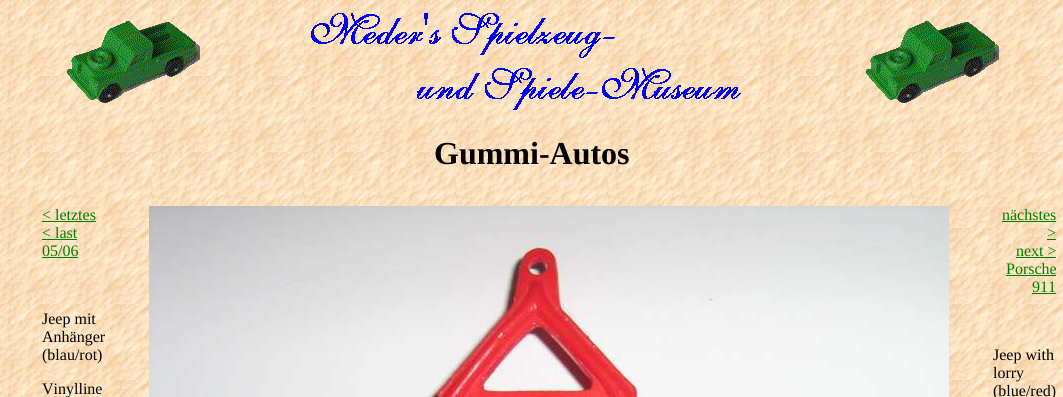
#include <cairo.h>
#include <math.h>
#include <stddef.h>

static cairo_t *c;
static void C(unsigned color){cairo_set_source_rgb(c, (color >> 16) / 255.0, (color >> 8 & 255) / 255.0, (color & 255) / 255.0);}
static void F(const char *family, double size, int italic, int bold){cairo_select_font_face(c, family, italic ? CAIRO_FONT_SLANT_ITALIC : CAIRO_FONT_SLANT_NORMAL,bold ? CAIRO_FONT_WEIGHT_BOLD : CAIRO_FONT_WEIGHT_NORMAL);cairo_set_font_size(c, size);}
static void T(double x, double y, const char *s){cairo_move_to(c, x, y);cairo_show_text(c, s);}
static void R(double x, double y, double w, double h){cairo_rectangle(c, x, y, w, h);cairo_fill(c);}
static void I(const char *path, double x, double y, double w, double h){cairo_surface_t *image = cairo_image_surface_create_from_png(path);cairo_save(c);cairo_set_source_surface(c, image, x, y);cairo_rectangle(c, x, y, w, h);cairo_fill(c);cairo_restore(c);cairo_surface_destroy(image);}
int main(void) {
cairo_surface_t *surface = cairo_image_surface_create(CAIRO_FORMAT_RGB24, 1063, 397);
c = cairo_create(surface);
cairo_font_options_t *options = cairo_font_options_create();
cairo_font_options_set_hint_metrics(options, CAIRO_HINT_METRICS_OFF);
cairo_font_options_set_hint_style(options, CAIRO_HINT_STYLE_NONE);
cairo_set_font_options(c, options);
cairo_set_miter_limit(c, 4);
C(0xffffff);
cairo_paint(c);
I("1.png",0,0,1063,397);
I("2.png",67,21,133,82);
I("3.png",311,13,430,97);
I("4.png",866,21,133,82);
F("Liberation Serif",32,0,1);
C(0x000000);
T(434,164,"Gummi-Autos");
F("Liberation Serif",16,0,0);
C(0x008000);
T(42,220,"< letztes");
R(42,221,54,1);
T(42,238,"< last");
R(42,239,35,1);
T(42,256,"05/06");
R(42,257,36,1);
C(0x000000);
T(42,324,"Jeep mit");
T(42,342,"Anhänger");
T(42,360,"(blau/rot)");
T(42,394,"Vinylline");
I("5.png",149,206,800,191);
C(0x008000);
T(1002,220,"nächstes");
R(1002,221,54,1);
T(1047,238,">");
R(1047,239,9,1);
T(1016,256,"next >");
R(1016,257,40,1);
T(1006,274,"Porsche");
R(1006,275,50,1);
T(1032,292,"911");
R(1032,293,24,1);
C(0x000000);
T(993,360,"Jeep with");
T(993,378,"lorry");
T(993,396,"(blue/red)");
cairo_surface_write_to_png(surface, "o.png");
cairo_font_options_destroy(options);
cairo_destroy(c);
cairo_surface_destroy(surface);
return 0;
}
